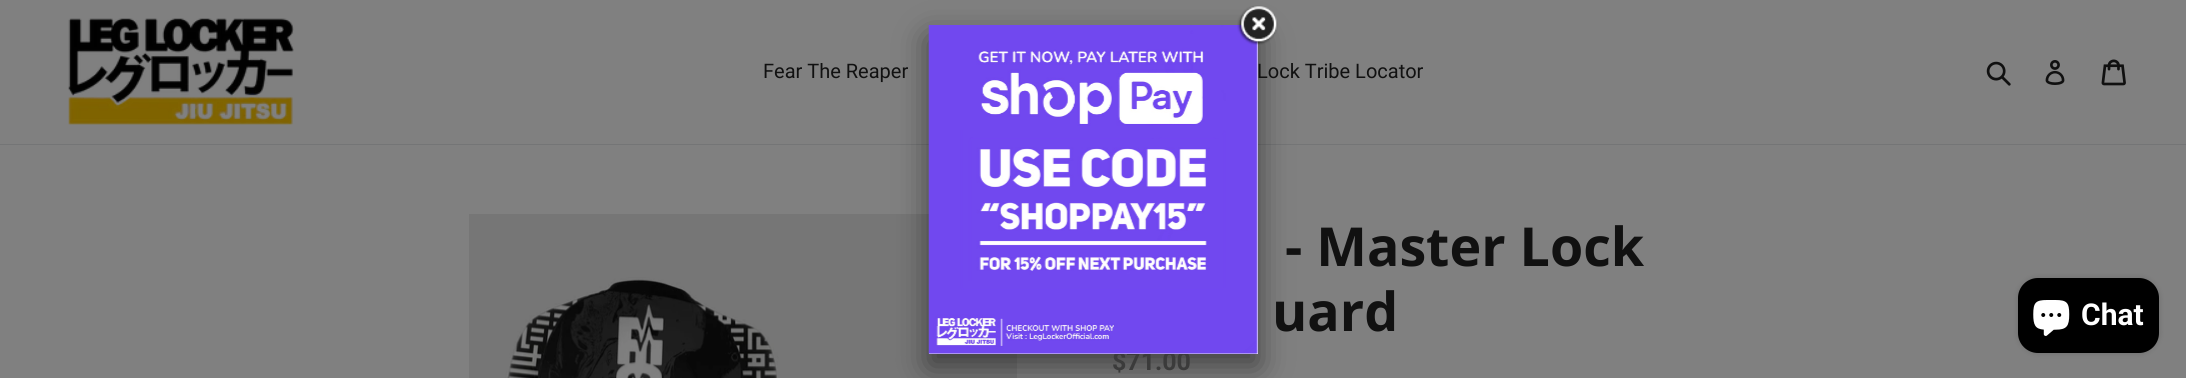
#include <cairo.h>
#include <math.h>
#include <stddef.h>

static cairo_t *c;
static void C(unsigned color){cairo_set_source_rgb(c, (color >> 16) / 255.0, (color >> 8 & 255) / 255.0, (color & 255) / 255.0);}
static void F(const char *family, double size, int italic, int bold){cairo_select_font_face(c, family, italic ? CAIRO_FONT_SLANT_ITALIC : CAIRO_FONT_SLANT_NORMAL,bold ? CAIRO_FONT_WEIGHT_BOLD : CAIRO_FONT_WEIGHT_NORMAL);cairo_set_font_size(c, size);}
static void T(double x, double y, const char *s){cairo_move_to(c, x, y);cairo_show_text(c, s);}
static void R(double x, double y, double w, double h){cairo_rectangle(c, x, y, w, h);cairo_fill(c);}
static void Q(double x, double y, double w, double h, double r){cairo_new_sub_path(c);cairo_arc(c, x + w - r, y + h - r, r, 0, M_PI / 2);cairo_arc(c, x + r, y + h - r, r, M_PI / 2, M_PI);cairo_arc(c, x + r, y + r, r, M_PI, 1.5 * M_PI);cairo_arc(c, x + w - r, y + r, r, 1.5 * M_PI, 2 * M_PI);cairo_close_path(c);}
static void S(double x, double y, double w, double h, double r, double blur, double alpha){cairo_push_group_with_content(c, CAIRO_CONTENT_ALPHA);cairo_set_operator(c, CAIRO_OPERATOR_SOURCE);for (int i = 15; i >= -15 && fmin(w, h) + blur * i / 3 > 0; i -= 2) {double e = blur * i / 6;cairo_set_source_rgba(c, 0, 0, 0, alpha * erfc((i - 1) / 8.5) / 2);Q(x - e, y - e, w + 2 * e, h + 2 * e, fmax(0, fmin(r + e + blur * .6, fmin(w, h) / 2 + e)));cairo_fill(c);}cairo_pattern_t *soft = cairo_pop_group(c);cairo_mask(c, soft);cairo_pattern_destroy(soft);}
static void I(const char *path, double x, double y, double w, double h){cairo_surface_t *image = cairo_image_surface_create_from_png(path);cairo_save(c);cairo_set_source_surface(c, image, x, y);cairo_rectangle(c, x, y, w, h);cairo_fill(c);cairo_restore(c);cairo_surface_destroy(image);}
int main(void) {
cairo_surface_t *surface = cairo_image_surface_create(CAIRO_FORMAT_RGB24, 2186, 378);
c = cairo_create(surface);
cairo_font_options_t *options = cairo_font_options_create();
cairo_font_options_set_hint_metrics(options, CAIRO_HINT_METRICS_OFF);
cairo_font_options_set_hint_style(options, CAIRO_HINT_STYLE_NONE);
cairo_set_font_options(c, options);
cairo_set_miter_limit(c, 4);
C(0x808080);
cairo_paint(c);
C(0x747576);
R(0,144,2186,1);
I("7.png",469,214,548,164);
C(0x000000);
S(929,38,329,328,0,15.5,.5);
F("Roboto",25,0,1);
C(0x3b3b3b);
T(1112,370,"$71.00");
C(0xf9f9f9);
R(929,39,329,315);
I("2.png",928,25,330,329);
I("1.png",1237,5,41,40);
I("3.png",68,18,226,107);
F("Roboto",20,0,0);
C(0x111111);
T(763,78,"Fear The Reaper");
T(1257,78,"Lock Tribe Locator");
I("4.png",1986,61,25,25);
I("5.png",2045,60,20,25);
I("6.png",2101,59,25,27);
F("Open Sans",53.75,0,1);
T(1285,266,"- Master Lock");
T(1272,331,"uard");
C(0x000000);
S(2018,278,141,75,20,3,.15);
C(0x000000);
Q(2018,278,141,75,20);
cairo_fill(c);
I("8.png",2033,300,37,36);
F("Roboto",30,0,1);
C(0xffffff);
T(2081,325,"Chat");
cairo_surface_write_to_png(surface, "o.png");
cairo_font_options_destroy(options);
cairo_destroy(c);
cairo_surface_destroy(surface);
return 0;
}
